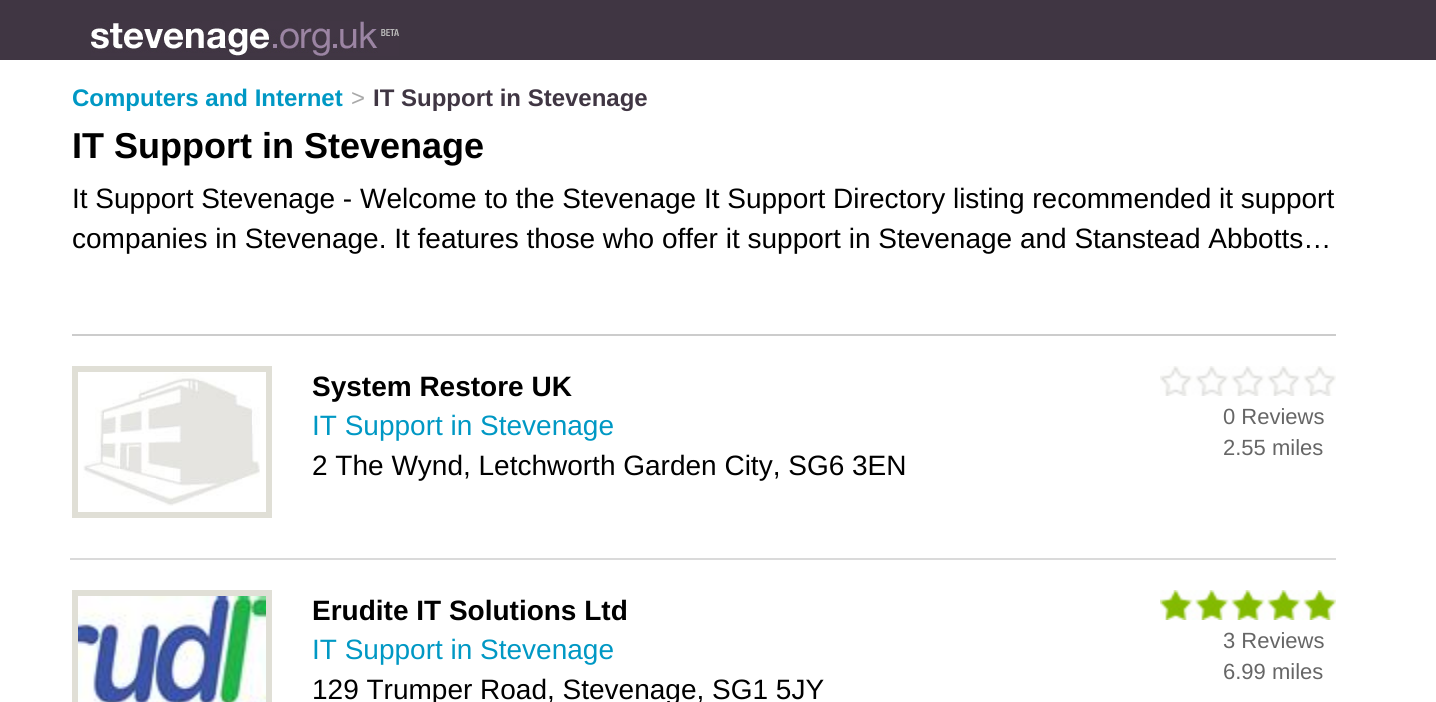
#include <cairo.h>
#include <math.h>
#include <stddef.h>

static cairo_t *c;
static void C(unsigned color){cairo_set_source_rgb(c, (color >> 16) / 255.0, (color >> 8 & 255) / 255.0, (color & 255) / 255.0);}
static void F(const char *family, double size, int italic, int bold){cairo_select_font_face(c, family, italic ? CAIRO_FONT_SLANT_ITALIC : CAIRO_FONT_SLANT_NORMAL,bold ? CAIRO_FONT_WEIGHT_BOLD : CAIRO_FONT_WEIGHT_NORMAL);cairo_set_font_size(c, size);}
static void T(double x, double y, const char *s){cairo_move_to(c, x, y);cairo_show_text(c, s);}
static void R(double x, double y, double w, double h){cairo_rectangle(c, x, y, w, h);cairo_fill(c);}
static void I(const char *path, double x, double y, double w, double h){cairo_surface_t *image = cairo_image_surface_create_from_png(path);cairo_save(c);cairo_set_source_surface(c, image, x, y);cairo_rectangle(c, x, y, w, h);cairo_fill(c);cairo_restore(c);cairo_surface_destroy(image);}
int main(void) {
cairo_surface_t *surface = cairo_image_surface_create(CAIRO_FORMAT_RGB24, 1436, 702);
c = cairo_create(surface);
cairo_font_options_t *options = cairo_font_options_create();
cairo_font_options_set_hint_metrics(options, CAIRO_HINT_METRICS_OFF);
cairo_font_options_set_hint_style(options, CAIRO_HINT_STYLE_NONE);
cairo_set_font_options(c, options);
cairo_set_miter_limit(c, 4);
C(0x403643);
cairo_paint(c);
I("1.png",91,21,308,35);
C(0xffffff);
R(0,60,1436,642);
F("Liberation Sans",24,0,1);
C(0x0098c4);
T(72,106,"Computers and Internet");
F("Liberation Sans",24,0,0);
C(0xa9a9a9);
T(351,106,">");
F("Liberation Sans",24,0,1);
C(0x403643);
T(373,106,"IT Support in Stevenage");
F("Liberation Sans",36,0,1);
C(0x000000);
T(72,158,"IT Support in Stevenage");
F("Liberation Sans",28,0,0);
T(72,208,"It Support Stevenage - Welcome to the Stevenage It Support Directory listing recommended it support");
T(72,248,"companies in Stevenage. It features those who offer it support in Stevenage and Stanstead Abbotts…");
C(0xcccccc);
R(72,334,1264,2);
cairo_rectangle(c,75,369,194,146);
C(0xe0dfd6);
cairo_set_line_width(c,6);
cairo_stroke(c);
I("2.png",83,373,177,133);
F("Liberation Sans",28,0,1);
C(0x000000);
T(312,396,"System Restore UK");
F("Liberation Sans",28,0,0);
C(0x0098c4);
T(312,435,"IT Support in Stevenage");
C(0x000000);
T(312,475,"2 The Wynd, Letchworth Garden City, SG6 3EN");
C(0xdadada);
R(70,558,1266,2);
I("3.png",1160,366,176,30);
F("Liberation Sans",22,0,0);
C(0x666666);
T(1223,424,"0 Reviews");
T(1223,455,"2.55 miles");
cairo_rectangle(c,75,593,194,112);
C(0xe0dfd6);
cairo_stroke(c);
I("4.png",78,596,188,106);
F("Liberation Sans",28,0,1);
C(0x000000);
T(312,620,"Erudite IT Solutions Ltd");
F("Liberation Sans",28,0,0);
C(0x0098c4);
T(312,659,"IT Support in Stevenage");
C(0x000000);
T(312,699,"129 Trumper Road, Stevenage, SG1 5JY");
I("5.png",1160,590,176,30);
F("Liberation Sans",22,0,0);
C(0x666666);
T(1223,648,"3 Reviews");
T(1223,679,"6.99 miles");
cairo_surface_write_to_png(surface, "o.png");
cairo_font_options_destroy(options);
cairo_destroy(c);
cairo_surface_destroy(surface);
return 0;
}
